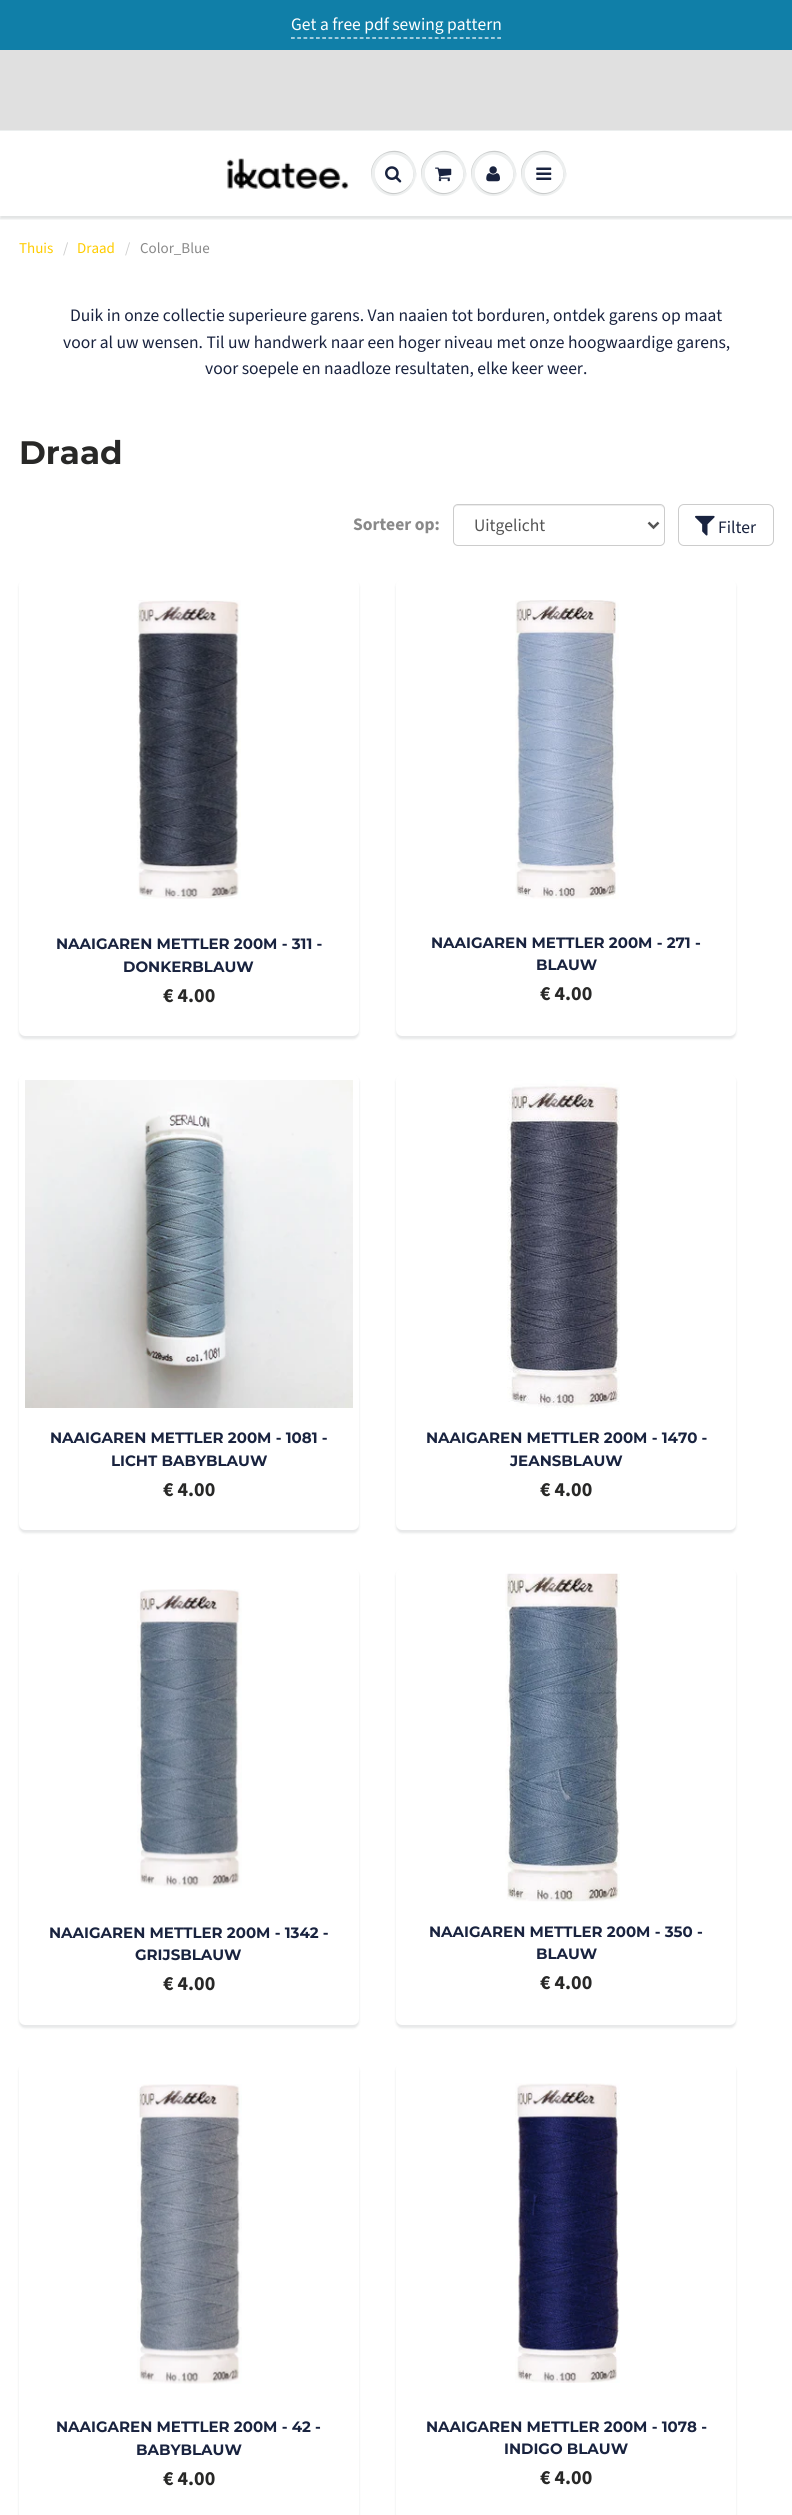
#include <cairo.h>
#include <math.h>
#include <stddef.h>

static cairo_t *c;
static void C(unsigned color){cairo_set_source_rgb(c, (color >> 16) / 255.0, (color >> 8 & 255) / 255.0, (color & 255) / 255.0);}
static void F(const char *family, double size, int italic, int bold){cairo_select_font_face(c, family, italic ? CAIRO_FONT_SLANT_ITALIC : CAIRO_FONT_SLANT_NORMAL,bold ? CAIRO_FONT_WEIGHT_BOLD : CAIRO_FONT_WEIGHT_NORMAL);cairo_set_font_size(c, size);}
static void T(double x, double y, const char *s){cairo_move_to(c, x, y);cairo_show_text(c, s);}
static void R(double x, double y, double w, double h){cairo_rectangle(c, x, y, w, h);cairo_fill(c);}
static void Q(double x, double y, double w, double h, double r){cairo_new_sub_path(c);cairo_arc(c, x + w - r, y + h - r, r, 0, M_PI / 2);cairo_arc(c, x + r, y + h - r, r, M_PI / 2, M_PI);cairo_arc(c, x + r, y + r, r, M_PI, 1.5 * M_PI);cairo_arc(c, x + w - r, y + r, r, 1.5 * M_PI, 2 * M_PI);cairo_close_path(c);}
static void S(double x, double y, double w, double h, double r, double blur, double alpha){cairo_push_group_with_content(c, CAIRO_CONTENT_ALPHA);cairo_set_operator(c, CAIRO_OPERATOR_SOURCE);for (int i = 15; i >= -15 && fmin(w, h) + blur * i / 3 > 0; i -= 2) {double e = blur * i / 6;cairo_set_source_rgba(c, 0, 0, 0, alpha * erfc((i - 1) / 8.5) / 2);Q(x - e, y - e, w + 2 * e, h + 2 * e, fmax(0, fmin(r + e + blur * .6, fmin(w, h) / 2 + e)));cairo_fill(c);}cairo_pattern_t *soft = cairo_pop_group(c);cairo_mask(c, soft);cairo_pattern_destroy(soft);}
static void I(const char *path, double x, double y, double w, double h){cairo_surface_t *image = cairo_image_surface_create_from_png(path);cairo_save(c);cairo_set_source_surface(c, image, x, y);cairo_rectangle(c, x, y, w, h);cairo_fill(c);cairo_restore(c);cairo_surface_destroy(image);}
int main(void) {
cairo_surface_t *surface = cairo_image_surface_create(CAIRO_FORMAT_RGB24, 792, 2515);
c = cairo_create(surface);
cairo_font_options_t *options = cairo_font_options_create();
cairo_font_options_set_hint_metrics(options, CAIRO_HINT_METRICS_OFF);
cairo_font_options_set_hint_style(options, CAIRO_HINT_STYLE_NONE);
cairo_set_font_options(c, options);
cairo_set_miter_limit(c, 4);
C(0xffffff);
cairo_paint(c);
C(0x107fa8);
R(0,0,792,50);
F("Source Sans Pro",17.5,0,0);
C(0xffffff);
T(291,30,"Get a free pdf sewing pattern");
cairo_new_path(c);
cairo_move_to(c,291,38);
cairo_line_to(c,501,38);
cairo_set_line_width(c,1.2);
cairo_set_dash(c,(double[]){3.75,2.5},2,0);
cairo_stroke(c);
C(0xe0e0e0);
R(0,50,792,80);
cairo_save(c);
cairo_rectangle(c,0,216,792,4);
cairo_clip(c);
C(0x0b191c);
S(0,133,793,86,0,1,.12);
cairo_restore(c);
C(0xecefef);
R(0,130,792,1);
I("1.png",226,158,123,31);
C(0xedefef);
cairo_arc(c,393.5,173.5,22.5,0,2 * M_PI);
cairo_fill(c);
C(0xc9cbcb);
cairo_new_path(c);
cairo_move_to(c,394,152);
cairo_curve_to(c,410,152,417,165,416,178);
cairo_curve_to(c,417,172,415,166,412,161);
cairo_curve_to(c,398,139,365,156,372,180);
cairo_curve_to(c,369,167,377,152,394,152);
cairo_close_path(c);
cairo_fill(c);
cairo_new_path(c);
cairo_move_to(c,375,174.5);
cairo_curve_to(c,375,179.5,377,184.5,380.5,188.5);
cairo_curve_to(c,395.5,203.5,420,186,411.5,167);
cairo_curve_to(c,418,185.5,395,201.5,380.5,187);
cairo_curve_to(c,377,184,375,179,375,174.5);
cairo_close_path(c);
cairo_fill(c);
C(0xffffff);
cairo_arc(c,394,174,19,0,2 * M_PI);
cairo_fill(c);
cairo_new_path(c);
cairo_move_to(c,394,156);
cairo_curve_to(c,410,156,415,173,410,185);
cairo_curve_to(c,423,164,392,142,378,163);
cairo_curve_to(c,375,168,374,173,376,178);
cairo_curve_to(c,374,168,380,156,394,156);
cairo_close_path(c);
cairo_fill(c);
I("2.png",385,166,17,17);
C(0xedefef);
cairo_arc(c,443.5,173.5,22.5,0,2 * M_PI);
cairo_fill(c);
C(0xc9cbcb);
cairo_new_path(c);
cairo_move_to(c,444,152);
cairo_curve_to(c,460,152,467,165,466,178);
cairo_curve_to(c,467,172,465,166,462,161);
cairo_curve_to(c,448,139,415,156,422,180);
cairo_curve_to(c,419,167,427,152,444,152);
cairo_close_path(c);
cairo_fill(c);
cairo_new_path(c);
cairo_move_to(c,425,174.5);
cairo_curve_to(c,425,179.5,427,184.5,430.5,188.5);
cairo_curve_to(c,445.5,203.5,470,186,461.5,167);
cairo_curve_to(c,468,185.5,445,201.5,430.5,187);
cairo_curve_to(c,427,184,425,179,425,174.5);
cairo_close_path(c);
cairo_fill(c);
C(0xffffff);
cairo_arc(c,444,174,19,0,2 * M_PI);
cairo_fill(c);
cairo_new_path(c);
cairo_move_to(c,444,156);
cairo_curve_to(c,460,156,465,173,460,185);
cairo_curve_to(c,473,164,442,142,428,163);
cairo_curve_to(c,425,168,424,173,426,178);
cairo_curve_to(c,424,168,430,156,444,156);
cairo_close_path(c);
cairo_fill(c);
I("3.png",435,167,17,15);
C(0xedefef);
cairo_arc(c,493.5,173.5,22.5,0,2 * M_PI);
cairo_fill(c);
C(0xc9cbcb);
cairo_new_path(c);
cairo_move_to(c,494,152);
cairo_curve_to(c,510,152,517,165,516,178);
cairo_curve_to(c,517,172,515,166,512,161);
cairo_curve_to(c,498,139,465,156,472,180);
cairo_curve_to(c,469,167,477,152,494,152);
cairo_close_path(c);
cairo_fill(c);
cairo_new_path(c);
cairo_move_to(c,475,174.5);
cairo_curve_to(c,475,179.5,477,184.5,480.5,188.5);
cairo_curve_to(c,495.5,203.5,520,186,511.5,167);
cairo_curve_to(c,518,185.5,495,201.5,480.5,187);
cairo_curve_to(c,477,184,475,179,475,174.5);
cairo_close_path(c);
cairo_fill(c);
C(0xffffff);
cairo_arc(c,494,174,19,0,2 * M_PI);
cairo_fill(c);
cairo_new_path(c);
cairo_move_to(c,494,156);
cairo_curve_to(c,510,156,515,173,510,185);
cairo_curve_to(c,523,164,492,142,478,163);
cairo_curve_to(c,475,168,474,173,476,178);
cairo_curve_to(c,474,168,480,156,494,156);
cairo_close_path(c);
cairo_fill(c);
I("4.png",486,166,14,16);
C(0xedefef);
cairo_arc(c,543.5,173.5,22.5,0,2 * M_PI);
cairo_fill(c);
C(0xc9cbcb);
cairo_new_path(c);
cairo_move_to(c,544,152);
cairo_curve_to(c,560,152,567,165,566,178);
cairo_curve_to(c,567,172,565,166,562,161);
cairo_curve_to(c,548,139,515,156,522,180);
cairo_curve_to(c,519,167,527,152,544,152);
cairo_close_path(c);
cairo_fill(c);
cairo_new_path(c);
cairo_move_to(c,525,174.5);
cairo_curve_to(c,525,179.5,527,184.5,530.5,188.5);
cairo_curve_to(c,545.5,203.5,570,186,561.5,167);
cairo_curve_to(c,568,185.5,545,201.5,530.5,187);
cairo_curve_to(c,527,184,525,179,525,174.5);
cairo_close_path(c);
cairo_fill(c);
C(0xffffff);
cairo_arc(c,544,174,19,0,2 * M_PI);
cairo_fill(c);
cairo_new_path(c);
cairo_move_to(c,544,156);
cairo_curve_to(c,560,156,565,173,560,185);
cairo_curve_to(c,573,164,542,142,528,163);
cairo_curve_to(c,525,168,524,173,526,178);
cairo_curve_to(c,524,168,530,156,544,156);
cairo_close_path(c);
cairo_fill(c);
I("5.png",536,167,16,13);
F("Source Sans Pro",15,0,0);
C(0xffcc00);
T(19,253,"Thuis");
C(0xcccccc);
T(63,253,"/");
C(0xffcc00);
T(77,253,"Draad");
C(0xcccccc);
T(125,253,"/");
C(0x898989);
T(140,253,"Color_Blue");
F("Source Sans Pro",17.5,0,0);
C(0x19233f);
T(70,321,"Duik in onze collectie superieure garens. Van naaien tot borduren, ontdek garens op maat");
T(63,348,"voor al uw wensen. Til uw handwerk naar een hoger niveau met onze hoogwaardige garens,");
T(205,374,"voor soepele en naadloze resultaten, elke keer weer.");
F("Montserrat",32.5,0,1);
C(0x282827);
T(19,464,"Draad");
F("Source Sans Pro",17.5,0,1);
C(0x898989);
T(353,530,"Sorteer op:");
C(0xececec);
cairo_new_path(c);
cairo_move_to(c,458,506);
cairo_line_to(c,660,506);
cairo_curve_to(c,662,506,664,508,664,510);
cairo_line_to(c,664,509);
cairo_curve_to(c,664,507,662,505,660,505);
cairo_line_to(c,458,505);
cairo_curve_to(c,456,505,454,507,454,509);
cairo_line_to(c,454,510);
cairo_curve_to(c,454,508,455,506,458,506);
cairo_close_path(c);
cairo_fill(c);
Q(453.5,504.5,211,41,4.5);
C(0xcccccc);
cairo_set_line_width(c,1);
cairo_set_dash(c,NULL,0,0);
cairo_stroke(c);
cairo_new_path(c);
cairo_move_to(c,648.5,522.5);
cairo_line_to(c,653.5,527.5);
cairo_line_to(c,658.5,522.5);
C(0x555555);
cairo_set_line_width(c,2.5);
cairo_stroke(c);
F("Source Sans Pro",17.5,0,0);
T(474,531,"Uitgelicht");
Q(678.5,504.5,95,41,5.5);
C(0xcccccc);
cairo_set_line_width(c,1);
cairo_stroke(c);
I("6.png",695,515,20,21);
C(0x19233f);
T(718,533,"Filter");
C(0x0b191c);
S(19,581,340,458,6,1,.1);
C(0xffffff);
Q(22,582,334,451,3);
cairo_fill_preserve(c);
cairo_set_line_width(c,6);
cairo_stroke(c);
I("7.png",137,600,104,299);
F("Montserrat",15,0,1);
C(0x19233f);
T(56,949,"NAAIGAREN METTLER 200M - 311 -");
T(123,972,"DONKERBLAUW");
F("Source Sans Pro",20,0,1);
C(0x282827);
T(163,1002,"€ 4.00");
C(0x0b191c);
S(396,581,340,458,6,1,.1);
C(0xffffff);
Q(399,582,334,451,3);
cairo_fill_preserve(c);
cairo_stroke(c);
I("8.png",515,600,104,299);
F("Montserrat",15,0,1);
C(0x19233f);
T(431,948,"NAAIGAREN METTLER 200M - 271 -");
T(536,970,"BLAUW");
F("Source Sans Pro",20,0,1);
C(0x282827);
T(540,1000,"€ 4.00");
C(0x0b191c);
S(19,1076,340,457,6,1,.1);
C(0xffffff);
Q(22,1077,334,450,3);
cairo_fill_preserve(c);
cairo_stroke(c);
I("9.png",25,1080,328,328);
F("Montserrat",15,0,1);
C(0x19233f);
T(50,1443,"NAAIGAREN METTLER 200M - 1081 -");
T(111,1466,"LICHT BABYBLAUW");
F("Source Sans Pro",20,0,1);
C(0x282827);
T(163,1496,"€ 4.00");
C(0x0b191c);
S(396,1076,340,457,6,1,.1);
C(0xffffff);
Q(399,1077,334,450,3);
cairo_fill_preserve(c);
cairo_stroke(c);
I("10.png",507,1080,113,328);
F("Montserrat",15,0,1);
C(0x19233f);
T(426,1443,"NAAIGAREN METTLER 200M - 1470 -");
T(510,1466,"JEANSBLAUW");
F("Source Sans Pro",20,0,1);
C(0x282827);
T(540,1496,"€ 4.00");
C(0x0b191c);
S(19,1570,340,458,6,1,.1);
C(0xffffff);
Q(22,1571,334,451,3);
cairo_fill_preserve(c);
cairo_stroke(c);
I("11.png",137,1589,105,299);
F("Montserrat",15,0,1);
C(0x19233f);
T(49,1938,"NAAIGAREN METTLER 200M - 1342 -");
T(135,1960,"GRIJSBLAUW");
F("Source Sans Pro",20,0,1);
C(0x282827);
T(163,1990,"€ 4.00");
C(0x0b191c);
S(396,1570,340,458,6,1,.1);
C(0xffffff);
Q(399,1571,334,451,3);
cairo_fill_preserve(c);
cairo_stroke(c);
I("12.png",505,1573,115,329);
F("Montserrat",15,0,1);
C(0x19233f);
T(429,1937,"NAAIGAREN METTLER 200M - 350 -");
T(536,1959,"BLAUW");
F("Source Sans Pro",20,0,1);
C(0x282827);
T(540,1989,"€ 4.00");
C(0x0b191c);
S(19,2065,340,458,6,1,.1);
C(0xffffff);
Q(19,2063,340,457,6);
cairo_fill(c);
I("13.png",137,2084,105,300);
F("Montserrat",15,0,1);
C(0x19233f);
T(56,2432,"NAAIGAREN METTLER 200M - 42 -");
T(136,2455,"BABYBLAUW");
F("Source Sans Pro",20,0,1);
C(0x282827);
T(163,2485,"€ 4.00");
C(0x0b191c);
S(396,2065,340,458,6,1,.1);
C(0xffffff);
Q(396,2063,340,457,6);
cairo_fill(c);
I("14.png",515,2083,105,300);
F("Montserrat",15,0,1);
C(0x19233f);
T(426,2432,"NAAIGAREN METTLER 200M - 1078 -");
T(504,2454,"INDIGO BLAUW");
F("Source Sans Pro",20,0,1);
C(0x282827);
T(540,2484,"€ 4.00");
cairo_surface_write_to_png(surface, "o.png");
cairo_font_options_destroy(options);
cairo_destroy(c);
cairo_surface_destroy(surface);
return 0;
}
